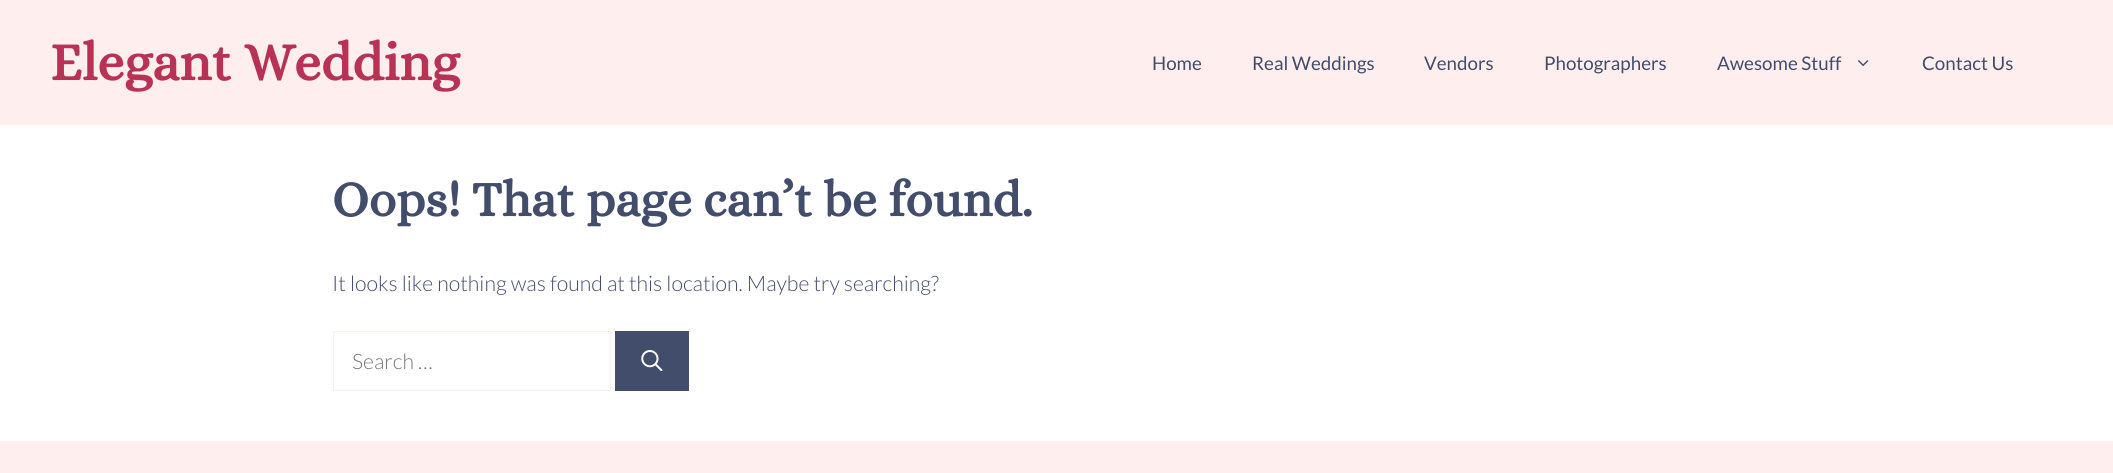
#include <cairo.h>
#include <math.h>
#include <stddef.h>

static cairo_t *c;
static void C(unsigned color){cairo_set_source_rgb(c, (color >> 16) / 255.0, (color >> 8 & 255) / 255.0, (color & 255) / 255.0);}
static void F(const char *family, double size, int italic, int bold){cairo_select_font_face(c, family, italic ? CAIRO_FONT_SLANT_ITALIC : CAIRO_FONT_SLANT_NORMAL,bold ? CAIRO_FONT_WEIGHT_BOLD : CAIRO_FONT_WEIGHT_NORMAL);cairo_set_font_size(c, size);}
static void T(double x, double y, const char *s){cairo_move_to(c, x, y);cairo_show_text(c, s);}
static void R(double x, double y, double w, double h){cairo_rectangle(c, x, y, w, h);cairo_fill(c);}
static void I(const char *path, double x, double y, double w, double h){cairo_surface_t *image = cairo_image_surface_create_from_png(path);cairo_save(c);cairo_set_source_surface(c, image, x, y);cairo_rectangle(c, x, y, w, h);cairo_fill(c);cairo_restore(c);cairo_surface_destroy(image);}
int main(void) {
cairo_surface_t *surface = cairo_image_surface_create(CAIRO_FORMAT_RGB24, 2113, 473);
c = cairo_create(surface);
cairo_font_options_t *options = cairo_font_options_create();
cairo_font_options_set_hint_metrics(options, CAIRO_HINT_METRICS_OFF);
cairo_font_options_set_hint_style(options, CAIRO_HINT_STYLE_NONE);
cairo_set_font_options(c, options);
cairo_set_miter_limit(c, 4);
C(0xffffff);
cairo_paint(c);
C(0xffeeee);
R(0,0,2113,125);
F("Alice",53.75,0,1);
C(0xb83255);
T(50,80,"Elegant Wedding");
F("Lato",18.75,0,0);
C(0x424c6b);
T(1152,70,"Home");
T(1252,70,"Real Weddings");
T(1424,70,"Vendors");
T(1544,70,"Photographers");
T(1717,70,"Awesome Stuff");
I("1.png",1858,60,11,7);
T(1922,70,"Contact Us");
F("Alice",50,0,1);
T(332,216,"Oops! That page can’t be found.");
F("Lato Light",21.25,0,0);
T(332,291,"It looks like nothing was found at this location. Maybe try searching?");
cairo_rectangle(c,333.5,331.5,277,59);
C(0xffeeee);
cairo_set_line_width(c,1);
cairo_stroke(c);
C(0x757575);
T(352,369,"Search …");
C(0x424c6b);
R(615,331,74,60);
I("2.png",641,350,22,21);
C(0xffeeee);
R(0,441,2113,32);
cairo_surface_write_to_png(surface, "o.png");
cairo_font_options_destroy(options);
cairo_destroy(c);
cairo_surface_destroy(surface);
return 0;
}
